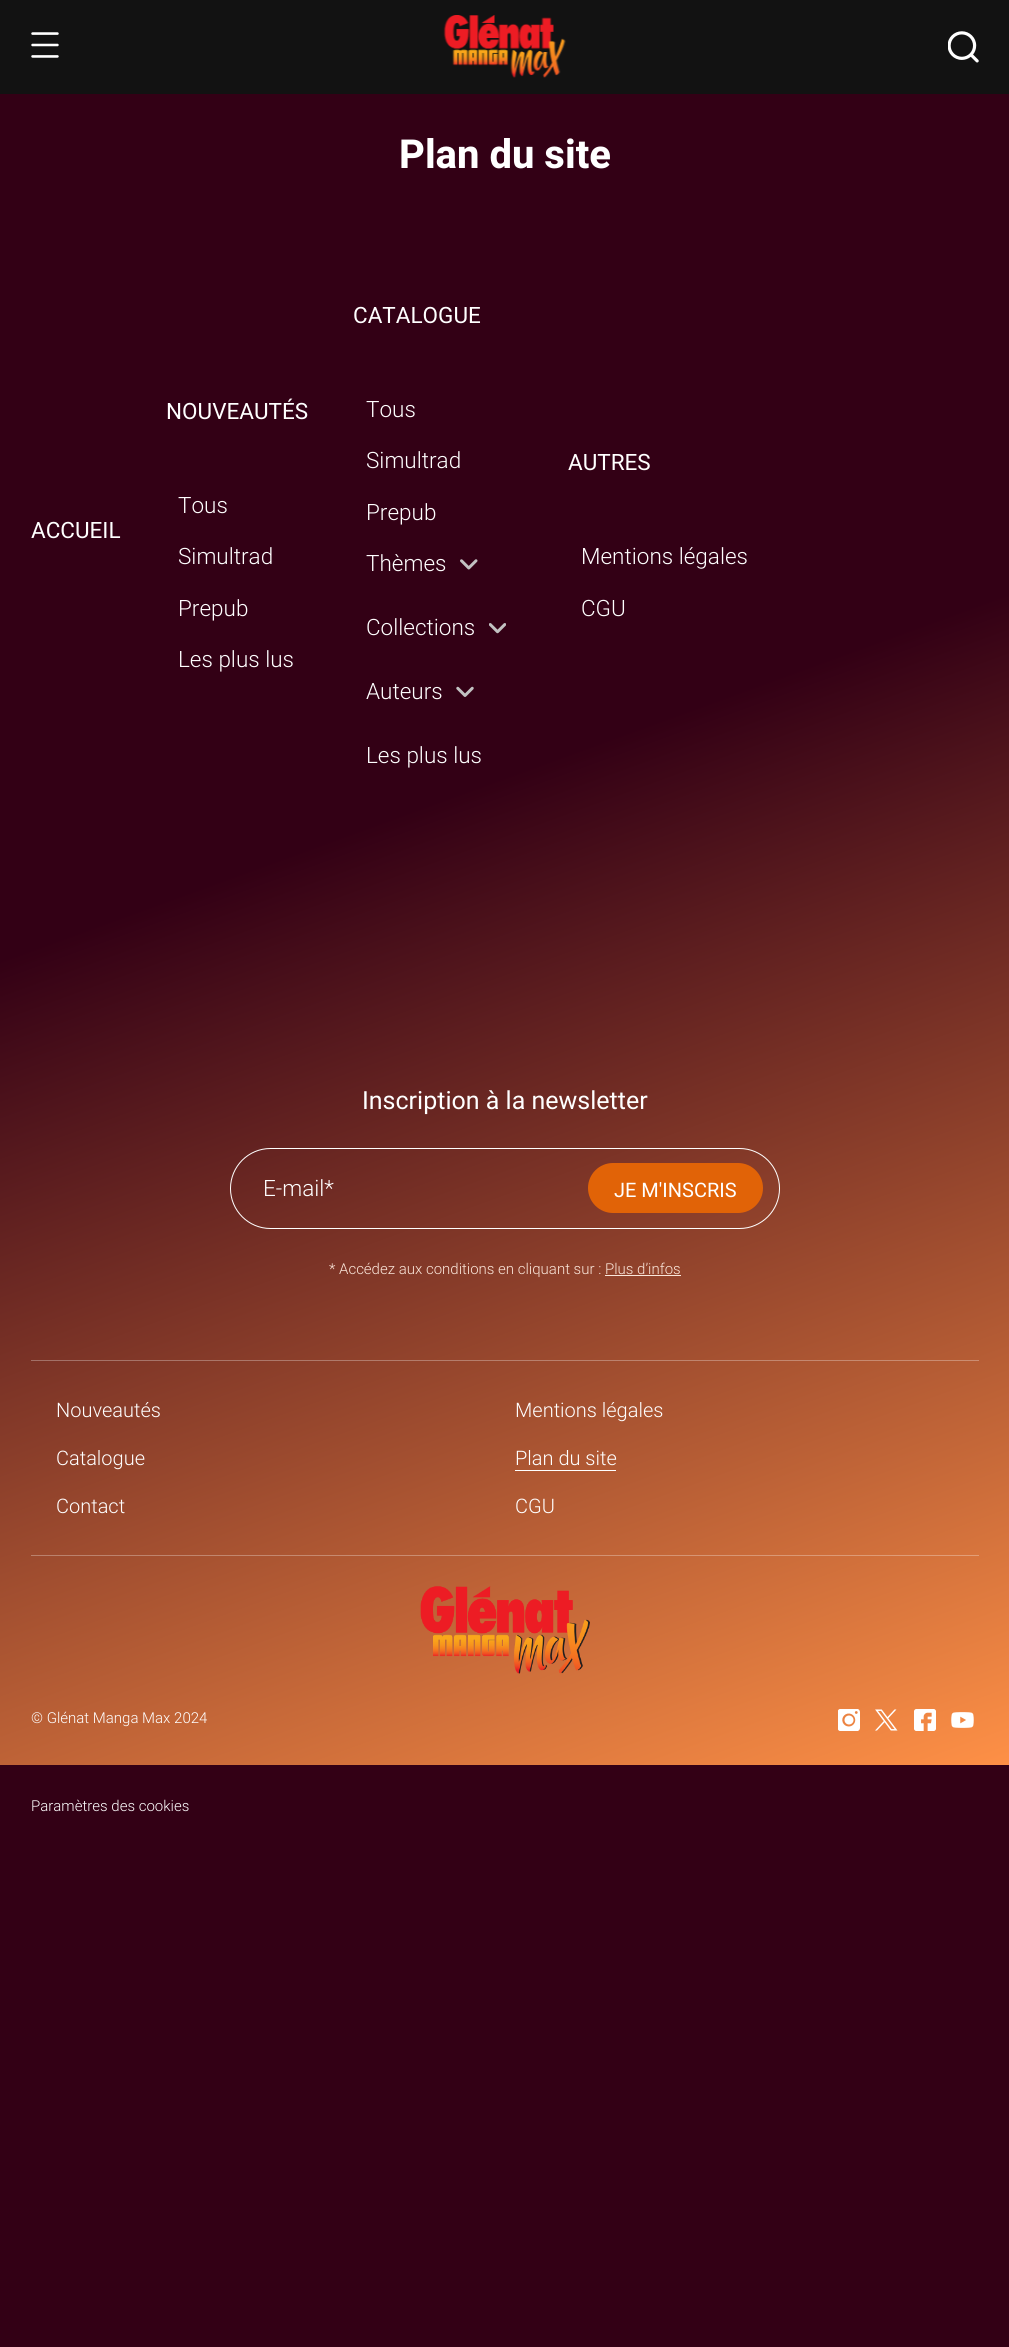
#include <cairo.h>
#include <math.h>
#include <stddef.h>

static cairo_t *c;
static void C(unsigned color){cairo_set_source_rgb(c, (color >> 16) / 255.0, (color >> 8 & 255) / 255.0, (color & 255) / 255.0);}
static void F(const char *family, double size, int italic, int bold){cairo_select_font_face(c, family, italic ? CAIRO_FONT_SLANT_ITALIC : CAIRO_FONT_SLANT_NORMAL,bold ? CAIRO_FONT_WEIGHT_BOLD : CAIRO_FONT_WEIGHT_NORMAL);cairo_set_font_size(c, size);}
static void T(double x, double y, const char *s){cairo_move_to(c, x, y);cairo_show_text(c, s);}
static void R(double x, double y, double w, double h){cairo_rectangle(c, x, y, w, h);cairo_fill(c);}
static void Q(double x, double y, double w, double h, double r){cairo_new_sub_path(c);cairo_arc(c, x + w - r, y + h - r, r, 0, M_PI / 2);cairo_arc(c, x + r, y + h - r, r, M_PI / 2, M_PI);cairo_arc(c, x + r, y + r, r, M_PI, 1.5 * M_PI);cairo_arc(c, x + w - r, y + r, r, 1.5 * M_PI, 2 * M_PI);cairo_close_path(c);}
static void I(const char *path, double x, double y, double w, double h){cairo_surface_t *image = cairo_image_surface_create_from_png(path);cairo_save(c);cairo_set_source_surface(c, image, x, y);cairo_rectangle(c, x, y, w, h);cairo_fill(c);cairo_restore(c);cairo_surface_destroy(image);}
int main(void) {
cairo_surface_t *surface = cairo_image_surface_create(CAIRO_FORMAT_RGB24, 1009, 2347);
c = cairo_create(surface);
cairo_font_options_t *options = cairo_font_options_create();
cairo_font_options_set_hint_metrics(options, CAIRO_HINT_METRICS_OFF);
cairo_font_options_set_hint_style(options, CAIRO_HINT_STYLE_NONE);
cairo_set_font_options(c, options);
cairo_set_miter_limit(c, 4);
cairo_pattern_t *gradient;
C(0xffffff);
cairo_paint(c);
gradient = cairo_pattern_create_linear(162,-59,848,1824);
cairo_pattern_add_color_stop_rgba(gradient,.45,0.2,0,0.082,1);
cairo_pattern_add_color_stop_rgba(gradient,1,0.996,0.565,0.275,1);
cairo_set_source(c,gradient);
cairo_pattern_destroy(gradient);
R(0,94,1009,1671);
gradient = cairo_pattern_create_linear(162,-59,848,1824);
cairo_pattern_add_color_stop_rgba(gradient,.45,0.439,0.302,0.357,1);
cairo_pattern_add_color_stop_rgba(gradient,1,0.996,0.694,0.494,1);
cairo_set_source(c,gradient);
cairo_pattern_destroy(gradient);
R(31,1555,948,1);
R(31,1360,948,1);
gradient = cairo_pattern_create_linear(162,1706,848,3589);
cairo_pattern_add_color_stop_rgba(gradient,.45,0.2,0,0.082,1);
cairo_pattern_add_color_stop_rgba(gradient,1,0.996,0.565,0.275,1);
cairo_set_source(c,gradient);
cairo_pattern_destroy(gradient);
R(0,1765,1009,582);
C(0x121212);
R(0,0,1009,94);
I("1.png",31,32,28,26);
I("2.png",443,15,123,63);
I("3.png",948,31,31,32);
F("Heebo",40,0,1);
C(0xffffff);
T(399,168,"Plan du site");
F("Heebo",22.5,0,0);
T(31,538,"ACCUEIL");
T(166,419,"NOUVEAUTÉS");
F("Heebo Light",22.5,0,0);
T(178,513,"Tous");
T(178,564,"Simultrad");
T(178,616,"Prepub");
T(178,667,"Les plus lus");
F("Heebo",22.5,0,0);
T(353,323,"CATALOGUE");
F("Heebo Light",22.5,0,0);
T(366,417,"Tous");
T(366,468,"Simultrad");
T(366,520,"Prepub");
T(366,571,"Thèmes");
I("4.png",460,559,18,11);
T(366,635,"Collections");
I("5.png",489,623,17,11);
T(366,699,"Auteurs");
I("6.png",456,686,18,11);
T(366,763,"Les plus lus");
F("Heebo",22.5,0,0);
T(568,470,"AUTRES");
F("Heebo Light",22.5,0,0);
T(581,564,"Mentions légales");
T(581,616,"CGU");
F("Heebo",25,0,0);
T(362,1109,"Inscription à la newsletter");
Q(230.5,1148.5,549,80,40);
cairo_set_line_width(c,1);
cairo_stroke(c);
F("Heebo Light",22.5,0,0);
T(263,1196,"E-mail*");
C(0xe16307);
Q(588,1163,175,50,25);
cairo_fill(c);
F("Heebo",20,0,0);
C(0xffffff);
T(614,1197,"JE M'INSCRIS");
F("Heebo Light",15,0,0);
C(0xfbe7db);
T(329,1274,"* Accédez aux conditions en cliquant sur : Plus d’infos");
R(605,1275,76,1);
F("Heebo Light",20,0,0);
C(0xffffff);
T(56,1417,"Nouveautés");
T(515,1417,"Mentions légales");
T(56,1465,"Catalogue");
T(515,1465,"Plan du site");
R(515,1470,101,1);
T(56,1513,"Contact");
T(515,1513,"CGU");
I("7.png",420,1586,170,88);
F("Heebo Light",15,0,0);
T(31,1723,"© Glénat Manga Max 2024");
I("8.png",838,1709,22,22);
I("9.png",875,1709,23,22);
I("10.png",914,1709,22,22);
I("11.png",951,1712,23,16);
T(31,1811,"Paramètres des cookies");
cairo_surface_write_to_png(surface, "o.png");
cairo_font_options_destroy(options);
cairo_destroy(c);
cairo_surface_destroy(surface);
return 0;
}
